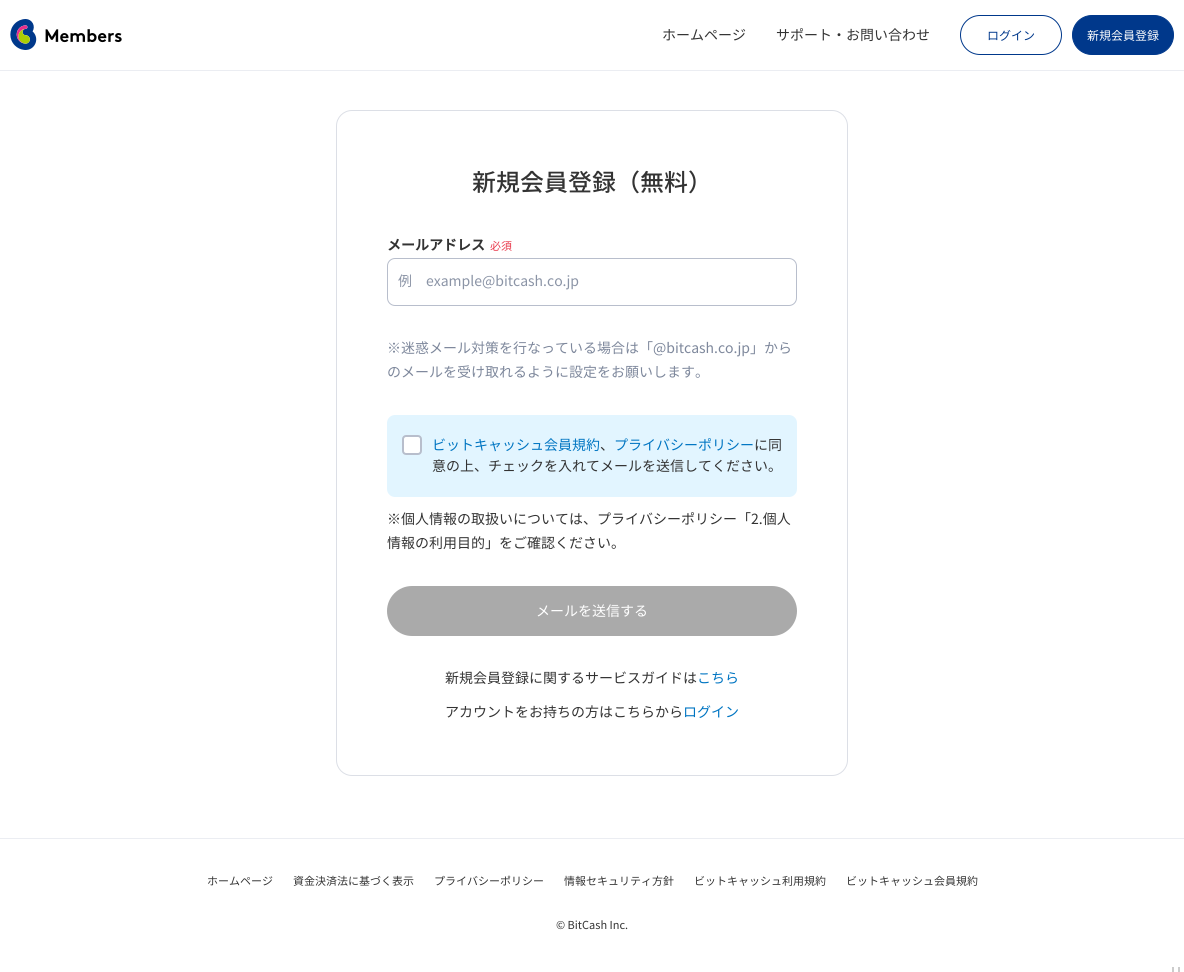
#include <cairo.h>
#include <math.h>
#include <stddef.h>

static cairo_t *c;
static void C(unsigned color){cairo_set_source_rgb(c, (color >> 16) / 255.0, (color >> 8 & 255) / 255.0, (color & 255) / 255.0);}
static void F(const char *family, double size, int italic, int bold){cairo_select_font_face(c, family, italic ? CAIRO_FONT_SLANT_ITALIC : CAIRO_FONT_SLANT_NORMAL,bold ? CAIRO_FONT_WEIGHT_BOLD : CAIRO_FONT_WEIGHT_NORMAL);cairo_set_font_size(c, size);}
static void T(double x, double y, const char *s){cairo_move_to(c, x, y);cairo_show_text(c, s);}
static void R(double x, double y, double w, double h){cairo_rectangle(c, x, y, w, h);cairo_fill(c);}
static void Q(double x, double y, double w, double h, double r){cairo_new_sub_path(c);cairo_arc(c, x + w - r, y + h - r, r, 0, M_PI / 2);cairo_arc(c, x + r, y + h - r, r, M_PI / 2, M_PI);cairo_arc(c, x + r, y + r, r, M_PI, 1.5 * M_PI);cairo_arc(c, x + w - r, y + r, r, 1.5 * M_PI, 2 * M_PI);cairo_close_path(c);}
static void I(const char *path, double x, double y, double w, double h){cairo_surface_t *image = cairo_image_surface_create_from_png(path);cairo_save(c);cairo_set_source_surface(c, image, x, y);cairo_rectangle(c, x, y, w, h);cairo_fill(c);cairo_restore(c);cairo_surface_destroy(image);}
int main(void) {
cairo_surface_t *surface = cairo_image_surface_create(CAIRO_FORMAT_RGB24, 1184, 972);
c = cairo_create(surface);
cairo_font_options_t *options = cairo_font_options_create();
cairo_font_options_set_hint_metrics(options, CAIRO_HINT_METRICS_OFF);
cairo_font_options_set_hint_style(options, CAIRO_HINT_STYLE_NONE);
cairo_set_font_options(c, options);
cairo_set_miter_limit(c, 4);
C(0xffffff);
cairo_paint(c);
C(0xebedf2);
R(0,70,1184,1);
I("1.png",10,19,112,31);
F("Noto Sans CJK JP",14,0,0);
C(0x333333);
T(662,40,"ホームページ");
T(776,40,"サポート・お問い合わせ");
Q(960.5,15.5,101,39,19.5);
C(0x00388b);
cairo_set_line_width(c,1);
cairo_stroke(c);
F("Noto Sans CJK JP",12,0,0);
T(987,40,"ログイン");
Q(1072.5,15.5,101,39,19.5);
cairo_fill_preserve(c);
cairo_stroke(c);
C(0xffffff);
T(1087,40,"新規会員登録");
Q(336.5,110.5,511,665,15.5);
C(0xdcdfe6);
cairo_stroke(c);
F("Noto Sans CJK JP Medium",24,0,0);
C(0x333333);
T(472,191,"新規会員登録（無料）");
F("Noto Sans CJK JP",14,0,1);
T(387,250,"メールアドレス");
F("Noto Sans CJK JP",11,0,0);
C(0xe8374a);
T(490,250,"必須");
Q(387.5,258.5,409,47,7.5);
C(0xb8becc);
cairo_stroke(c);
F("Noto Sans CJK JP",14,0,0);
C(0x8b94a6);
T(398,286,"例");
T(426,286,"example@bitcash.co.jp");
C(0x7e889c);
T(387,353,"※迷惑メール対策を行なっている場合は「@bitcash.co.jp」から");
T(387,377,"のメールを受け取れるように設定をお願いします。");
C(0xe2f5ff);
Q(387,415,410,82,8);
cairo_fill(c);
C(0xffffff);
Q(403,436,18,18,3);
cairo_fill_preserve(c);
C(0xb8becc);
cairo_set_line_width(c,2);
cairo_stroke(c);
C(0x0075c2);
T(432,450,"ビットキャッシュ会員規約");
C(0x333333);
T(600,450,"、");
C(0x0075c2);
T(614,450,"プライバシーポリシー");
C(0x333333);
T(754,450,"に同");
T(432,471,"意の上、チェックを入れてメールを送信してください。");
T(387,524,"※個人情報の取扱いについては、プライバシーポリシー「2.個人");
T(387,548,"情報の利用目的」をご確認ください。");
C(0xaaaaaa);
Q(387,586,410,50,25);
cairo_fill(c);
C(0xffffff);
T(536,616,"メールを送信する");
C(0x333333);
T(445,683,"新規会員登録に関するサービスガイドは");
C(0x0075c2);
T(697,683,"こちら");
C(0x333333);
T(445,717,"アカウントをお持ちの方はこちらから");
C(0x0075c2);
T(683,717,"ログイン");
C(0xebedf2);
R(0,838,1184,1);
F("Noto Sans CJK JP",11,0,0);
C(0x333333);
T(207,885,"ホームページ");
T(293,885,"資金決済法に基づく表示");
T(434,885,"プライバシーポリシー");
T(564,885,"情報セキュリティ方針");
T(694,885,"ビットキャッシュ利用規約");
T(846,885,"ビットキャッシュ会員規約");
T(556,929,"© BitCash Inc.");
I("2.png",1172,967,8,5);
cairo_surface_write_to_png(surface, "o.png");
cairo_font_options_destroy(options);
cairo_destroy(c);
cairo_surface_destroy(surface);
return 0;
}
